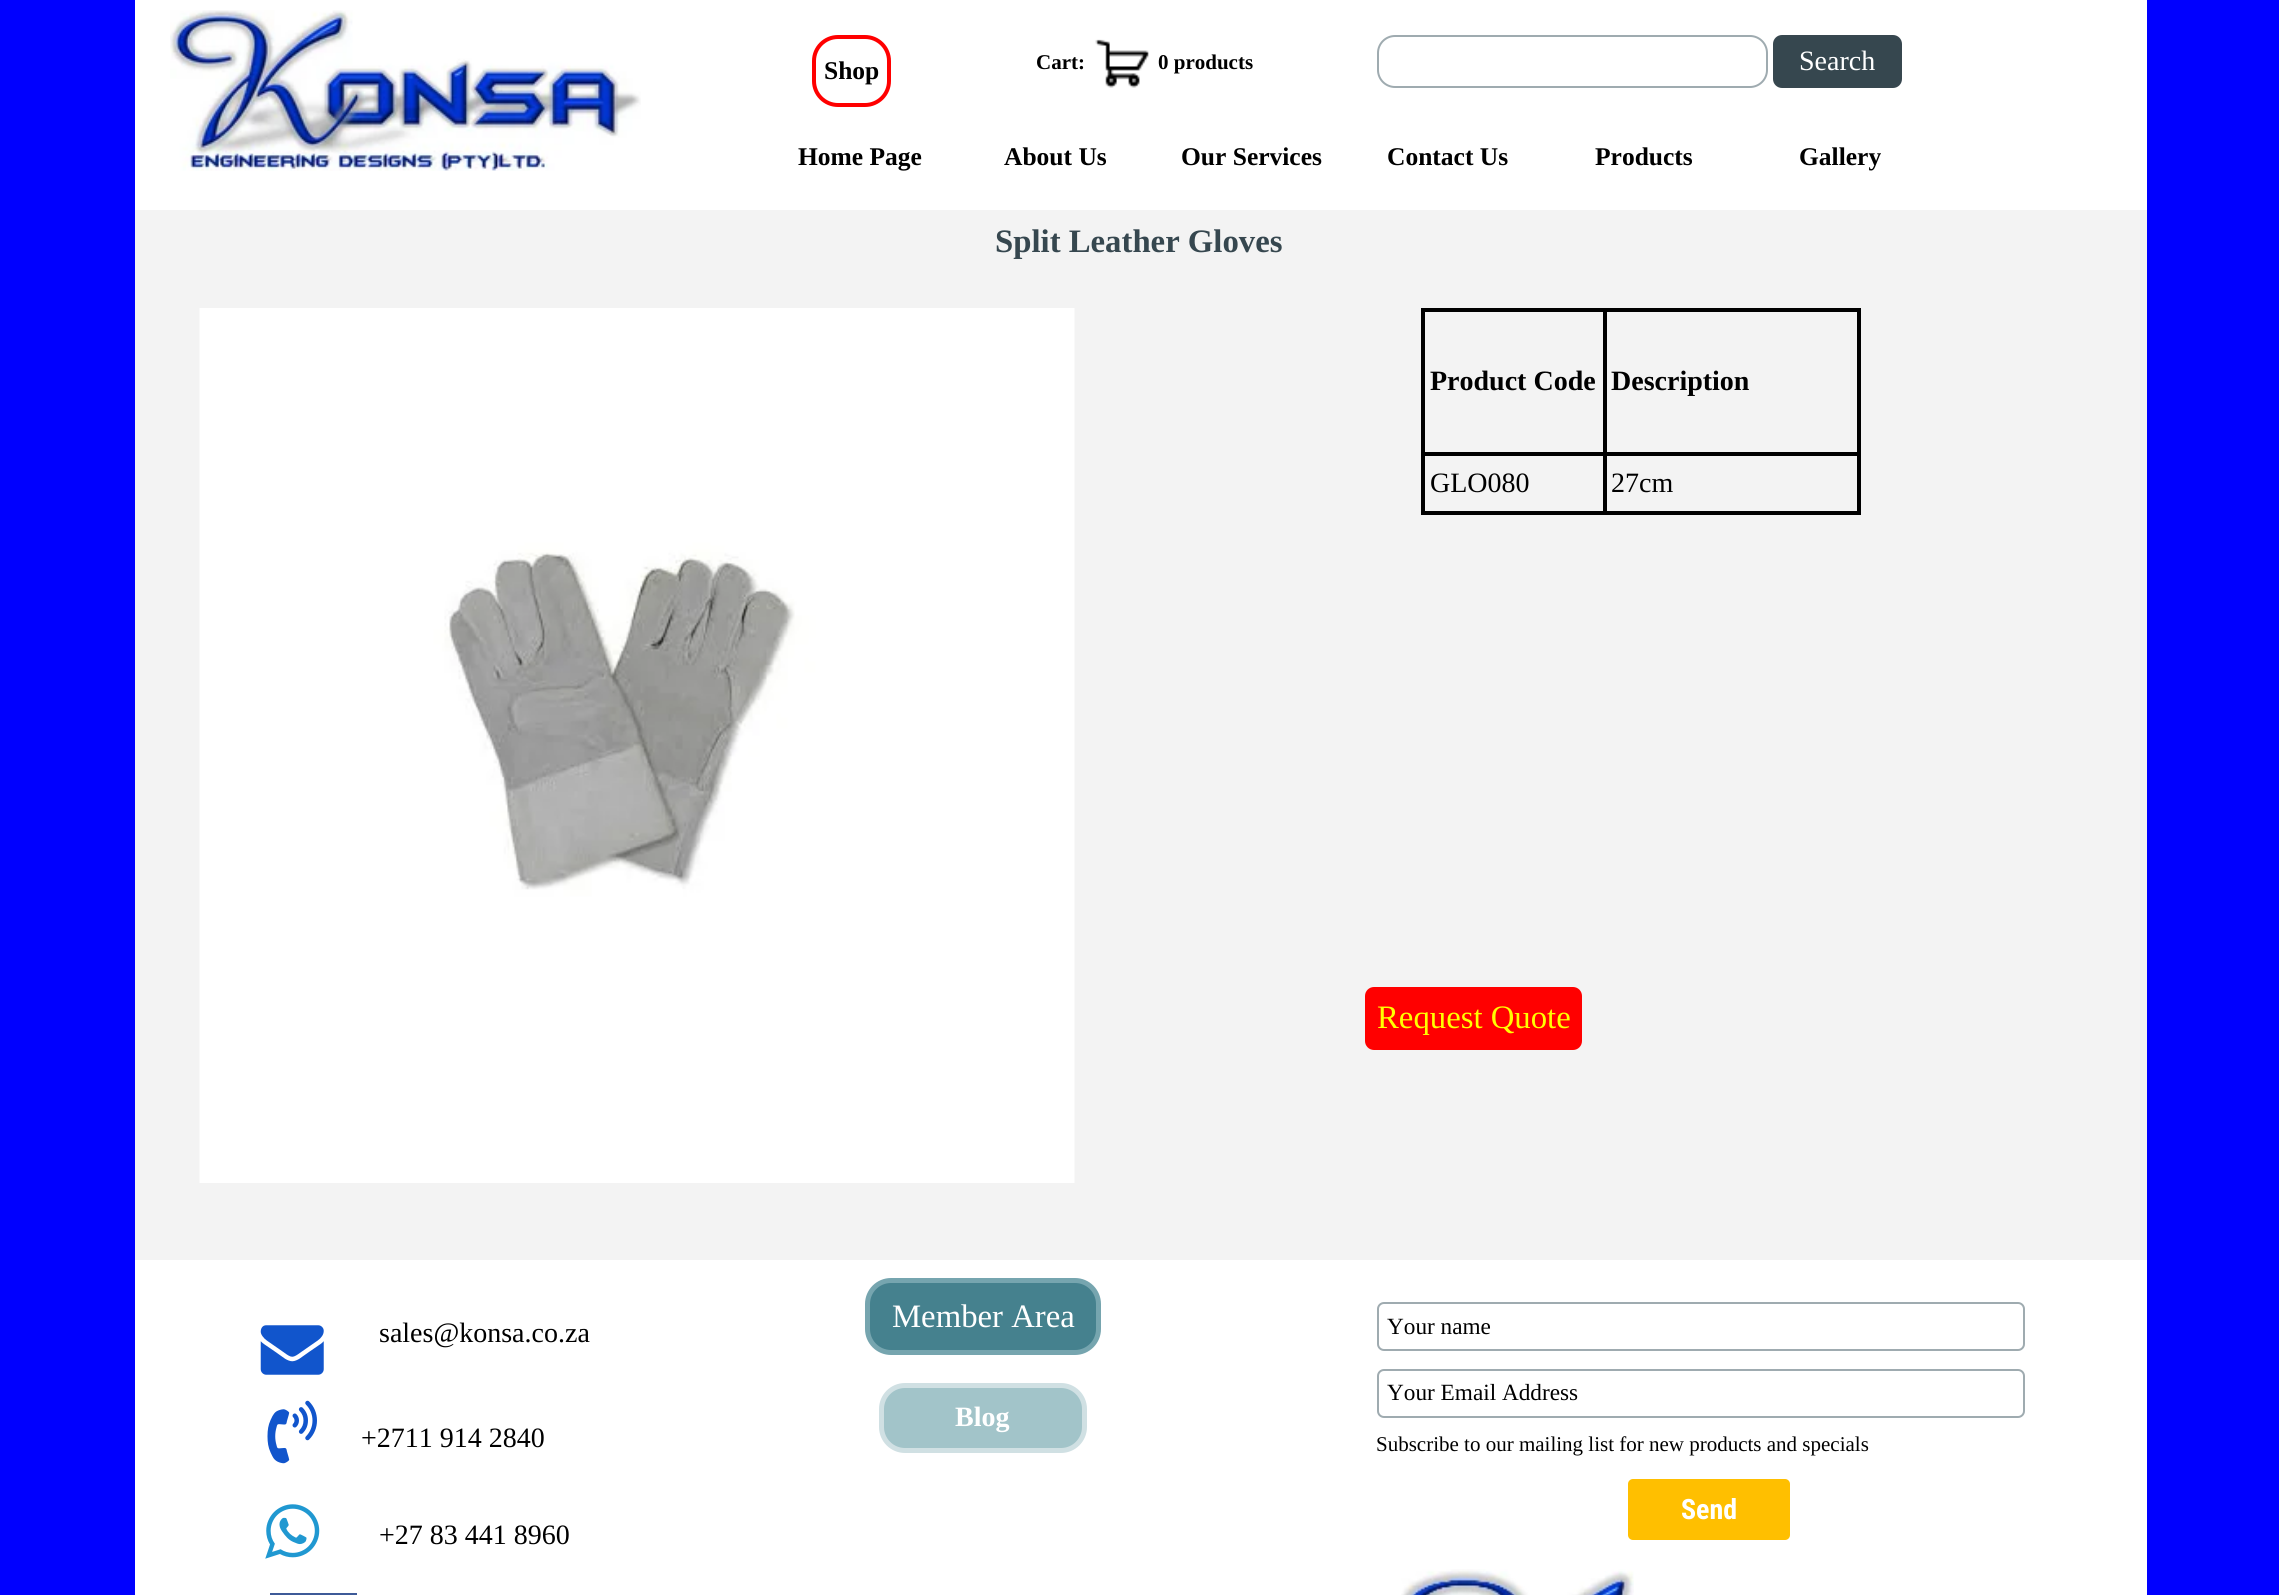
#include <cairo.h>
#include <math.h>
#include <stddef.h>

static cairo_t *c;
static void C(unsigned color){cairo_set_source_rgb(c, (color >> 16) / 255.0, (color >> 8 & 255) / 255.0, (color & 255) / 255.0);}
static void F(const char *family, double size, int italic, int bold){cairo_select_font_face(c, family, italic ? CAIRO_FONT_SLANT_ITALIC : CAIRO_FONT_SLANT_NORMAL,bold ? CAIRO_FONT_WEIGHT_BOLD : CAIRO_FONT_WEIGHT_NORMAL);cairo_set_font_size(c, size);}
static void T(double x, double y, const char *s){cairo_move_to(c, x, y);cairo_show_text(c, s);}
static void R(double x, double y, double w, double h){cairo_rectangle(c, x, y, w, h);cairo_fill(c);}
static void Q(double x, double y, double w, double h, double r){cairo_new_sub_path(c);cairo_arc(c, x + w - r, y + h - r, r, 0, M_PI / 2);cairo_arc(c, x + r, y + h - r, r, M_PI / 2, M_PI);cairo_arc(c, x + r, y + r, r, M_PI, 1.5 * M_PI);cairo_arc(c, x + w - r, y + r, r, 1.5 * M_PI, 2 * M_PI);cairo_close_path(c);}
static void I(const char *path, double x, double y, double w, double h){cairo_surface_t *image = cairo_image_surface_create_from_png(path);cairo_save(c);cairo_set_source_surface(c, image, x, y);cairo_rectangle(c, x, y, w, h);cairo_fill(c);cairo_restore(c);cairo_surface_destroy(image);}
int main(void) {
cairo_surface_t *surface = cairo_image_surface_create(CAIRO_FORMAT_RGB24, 2279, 1595);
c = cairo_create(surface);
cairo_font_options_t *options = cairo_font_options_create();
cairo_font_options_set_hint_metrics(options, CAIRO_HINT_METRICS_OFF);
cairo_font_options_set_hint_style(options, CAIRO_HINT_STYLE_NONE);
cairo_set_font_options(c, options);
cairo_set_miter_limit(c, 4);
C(0x0000ff);
cairo_paint(c);
C(0xffffff);
R(135,0,2012,210);
I("1.png",170,10,471,161);
Q(814,37,75,68,24);
C(0xff0000);
cairo_set_line_width(c,4);
cairo_stroke(c);
F("Liberation Serif",25.5,0,1);
C(0x000000);
T(824,79,"Shop");
F("Liberation Serif",21,0,1);
T(1036,69,"Cart:");
I("2.png",1095,39,54,49);
T(1158,69,"0 products");
Q(1378,36,389,51,17);
C(0x9fabb0);
cairo_set_line_width(c,2);
cairo_stroke(c);
C(0x36474f);
Q(1774,36,127,51,8);
cairo_fill_preserve(c);
C(0x37474f);
cairo_stroke(c);
F("Liberation Serif",28,0,0);
C(0xffffff);
T(1799,70,"Search");
F("Liberation Serif",25.5,0,1);
C(0x000000);
T(798,165,"Home Page");
T(1004,165,"About Us");
T(1181,165,"Our Services");
T(1387,165,"Contact Us");
T(1595,165,"Products");
T(1799,165,"Gallery");
C(0xf3f3f3);
R(135,210,2012,1050);
F("Liberation Serif",32.75,0,1);
C(0x36474f);
T(995,252,"Split Leather Gloves");
I("3.png",199,308,876,875);
C(0x000000);
R(1603,308,257,4);
R(1603,452,257,4);
R(1857,452,4,63);
R(1603,511,257,4);
R(1603,452,4,63);
R(1421,452,186,4);
R(1603,308,4,147);
R(1421,308,186,4);
R(1421,511,186,4);
R(1421,452,4,63);
R(1421,308,4,147);
F("Liberation Serif",28,0,1);
T(1430,390,"Product Code");
R(1857,308,4,147);
T(1611,390,"Description");
F("Liberation Serif",28,0,0);
T(1430,492,"GLO080");
T(1611,492,"27cm");
C(0xff0000);
Q(1365,987,217,63,9);
cairo_fill(c);
F("Liberation Serif",32.75,0,0);
C(0xffff00);
T(1377,1028,"Request Quote");
C(0xffffff);
R(135,1260,2012,335);
I("4.png",260,1325,64,50);
F("Liberation Serif",28,0,0);
C(0x000000);
T(379,1342,"sales@konsa.co.za");
C(0x45818e);
Q(867.5,1280.5,231,72,23.5);
cairo_fill_preserve(c);
C(0x76a5af);
cairo_set_line_width(c,5);
cairo_stroke(c);
F("Liberation Serif",32.75,0,0);
C(0xffffff);
T(892,1327,"Member Area");
Q(1378,1303,646,47,6);
C(0x9fabb0);
cairo_set_line_width(c,2);
cairo_stroke(c);
F("Liberation Serif",23.25,0,0);
C(0x000000);
T(1387,1334,"Your name");
Q(1378,1370,646,47,6);
C(0x9fabb0);
cairo_stroke(c);
C(0x000000);
T(1387,1400,"Your Email Address");
F("Liberation Serif",21,0,0);
T(1376,1451,"Subscribe to our mailing list for new products and specials");
C(0xffbf00);
Q(1628,1479,162,61,5);
cairo_fill(c);
F("Roboto Condensed",28,0,1);
C(0xffffff);
T(1681,1519,"Send");
I("5.png",267,1400,50,64);
C(0xa2c4c9);
Q(881.5,1385.5,203,65,23.5);
cairo_fill_preserve(c);
C(0xd0e0e3);
cairo_set_line_width(c,5);
cairo_stroke(c);
F("Liberation Serif",28,0,1);
C(0xffffff);
T(955,1426,"Blog");
F("Liberation Serif",28,0,0);
C(0x000000);
T(361,1447,"+2711 914 2840");
I("6.png",265,1504,55,55);
T(379,1544,"+27 83 441 8960");
C(0x3d5a98);
R(270,1593,87,2);
I("7.png",1401,1569,233,26);
cairo_surface_write_to_png(surface, "o.png");
cairo_font_options_destroy(options);
cairo_destroy(c);
cairo_surface_destroy(surface);
return 0;
}
